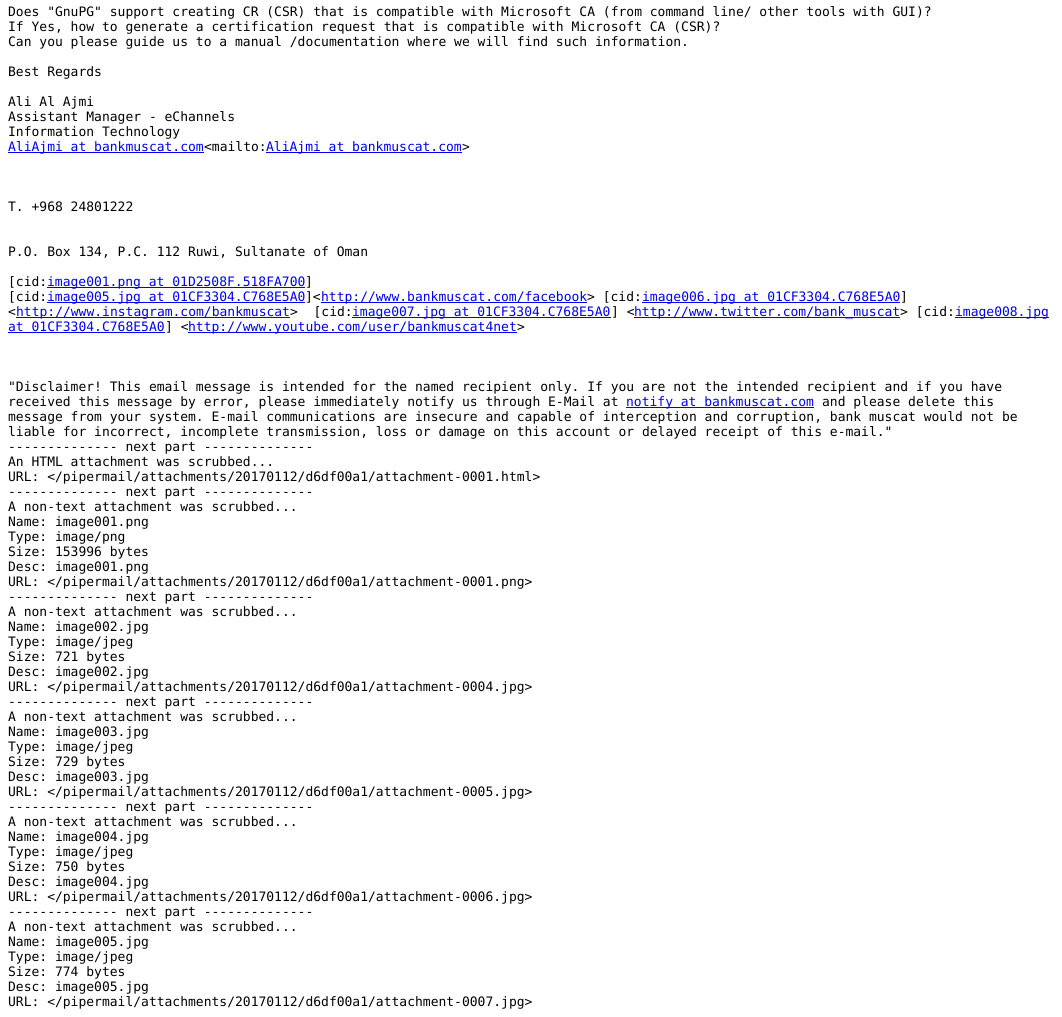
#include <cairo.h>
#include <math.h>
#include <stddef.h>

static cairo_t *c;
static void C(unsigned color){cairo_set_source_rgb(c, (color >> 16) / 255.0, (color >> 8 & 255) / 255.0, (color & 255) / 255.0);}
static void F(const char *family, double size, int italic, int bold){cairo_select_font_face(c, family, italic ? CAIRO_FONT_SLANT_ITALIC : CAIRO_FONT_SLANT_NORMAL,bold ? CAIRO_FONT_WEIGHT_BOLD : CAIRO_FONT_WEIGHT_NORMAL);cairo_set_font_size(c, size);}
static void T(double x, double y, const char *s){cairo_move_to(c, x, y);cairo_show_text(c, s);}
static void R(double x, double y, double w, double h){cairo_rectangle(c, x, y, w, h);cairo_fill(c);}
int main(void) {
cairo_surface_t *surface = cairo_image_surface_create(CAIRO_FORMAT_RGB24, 1062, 1017);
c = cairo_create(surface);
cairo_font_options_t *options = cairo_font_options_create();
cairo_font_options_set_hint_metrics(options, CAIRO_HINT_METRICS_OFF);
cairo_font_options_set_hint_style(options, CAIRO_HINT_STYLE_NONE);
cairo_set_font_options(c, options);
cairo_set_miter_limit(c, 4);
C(0xffffff);
cairo_paint(c);
F("DejaVu Sans Mono",13,0,0);
C(0x000000);
T(8,16,"Does \"GnuPG\" support creating CR (CSR) that is compatible with Microsoft CA (from command line/ other tools with GUI)?");
T(8,31,"If Yes, how to generate a certification request that is compatible with Microsoft CA (CSR)?");
T(8,46,"Can you please guide us to a manual /documentation where we will find such information.");
T(8,76,"Best Regards");
T(8,106,"Ali Al Ajmi");
T(8,121,"Assistant Manager - eChannels");
T(8,136,"Information Technology");
C(0x0000ee);
R(8,152,196,1);
T(8,151,"AliAjmi at bankmuscat.com");
C(0x000000);
T(204,151,"<mailto:");
C(0x0000ee);
R(266,152,196,1);
T(266,151,"AliAjmi at bankmuscat.com");
C(0x000000);
T(462,151,">");
T(8,211,"T. +968 24801222");
T(8,256,"P.O. Box 134, P.C. 112 Ruwi, Sultanate of Oman");
T(8,286,"[cid:");
C(0x0000ee);
R(47,287,258,1);
T(47,286,"image001.png at 01D2508F.518FA700");
C(0x000000);
T(305,286,"]");
T(8,301,"[cid:");
C(0x0000ee);
R(47,302,258,1);
T(47,301,"image005.jpg at 01CF3304.C768E5A0");
C(0x000000);
T(305,301,"]<");
C(0x0000ee);
R(321,302,266,1);
T(321,301,"http://www.bankmuscat.com/facebook");
C(0x000000);
T(587,301,"> [cid:");
C(0x0000ee);
R(642,302,258,1);
T(642,301,"image006.jpg at 01CF3304.C768E5A0");
C(0x000000);
T(900,301,"]");
T(8,316,"<");
C(0x0000ee);
R(16,317,274,1);
T(16,316,"http://www.instagram.com/bankmuscat");
C(0x000000);
T(290,316,">  [cid:");
C(0x0000ee);
R(352,317,259,1);
T(352,316,"image007.jpg at 01CF3304.C768E5A0");
C(0x000000);
T(611,316,"] <");
C(0x0000ee);
R(634,317,266,1);
T(634,316,"http://www.twitter.com/bank_muscat");
C(0x000000);
T(900,316,"> [cid:");
C(0x0000ee);
R(955,317,94,1);
T(955,316,"image008.jpg");
T(8,331,"at 01CF3304.C768E5A0");
R(8,332,157,1);
C(0x000000);
T(165,331,"] <");
C(0x0000ee);
R(188,332,329,1);
T(188,331,"http://www.youtube.com/user/bankmuscat4net");
C(0x000000);
T(517,331,">");
T(8,391,"\"Disclaimer! This email message is intended for the named recipient only. If you are not the intended recipient and if you have");
T(8,406,"received this message by error, please immediately notify us through E-Mail at");
C(0x0000ee);
R(626,407,188,1);
T(626,406,"notify at bankmuscat.com");
C(0x000000);
T(822,406,"and please delete this");
T(8,421,"message from your system. E-mail communications are insecure and capable of interception and corruption, bank muscat would not be");
T(8,436,"liable for incorrect, incomplete transmission, loss or damage on this account or delayed receipt of this e-mail.\"");
T(8,451,"-------------- next part --------------");
T(8,466,"An HTML attachment was scrubbed...");
T(8,481,"URL: </pipermail/attachments/20170112/d6df00a1/attachment-0001.html>");
T(8,496,"-------------- next part --------------");
T(8,511,"A non-text attachment was scrubbed...");
T(8,526,"Name: image001.png");
T(8,541,"Type: image/png");
T(8,556,"Size: 153996 bytes");
T(8,571,"Desc: image001.png");
T(8,586,"URL: </pipermail/attachments/20170112/d6df00a1/attachment-0001.png>");
T(8,601,"-------------- next part --------------");
T(8,616,"A non-text attachment was scrubbed...");
T(8,631,"Name: image002.jpg");
T(8,646,"Type: image/jpeg");
T(8,661,"Size: 721 bytes");
T(8,676,"Desc: image002.jpg");
T(8,691,"URL: </pipermail/attachments/20170112/d6df00a1/attachment-0004.jpg>");
T(8,706,"-------------- next part --------------");
T(8,721,"A non-text attachment was scrubbed...");
T(8,736,"Name: image003.jpg");
T(8,751,"Type: image/jpeg");
T(8,766,"Size: 729 bytes");
T(8,781,"Desc: image003.jpg");
T(8,796,"URL: </pipermail/attachments/20170112/d6df00a1/attachment-0005.jpg>");
T(8,811,"-------------- next part --------------");
T(8,826,"A non-text attachment was scrubbed...");
T(8,841,"Name: image004.jpg");
T(8,856,"Type: image/jpeg");
T(8,871,"Size: 750 bytes");
T(8,886,"Desc: image004.jpg");
T(8,901,"URL: </pipermail/attachments/20170112/d6df00a1/attachment-0006.jpg>");
T(8,916,"-------------- next part --------------");
T(8,931,"A non-text attachment was scrubbed...");
T(8,946,"Name: image005.jpg");
T(8,961,"Type: image/jpeg");
T(8,976,"Size: 774 bytes");
T(8,991,"Desc: image005.jpg");
T(8,1006,"URL: </pipermail/attachments/20170112/d6df00a1/attachment-0007.jpg>");
cairo_surface_write_to_png(surface, "o.png");
cairo_font_options_destroy(options);
cairo_destroy(c);
cairo_surface_destroy(surface);
return 0;
}
